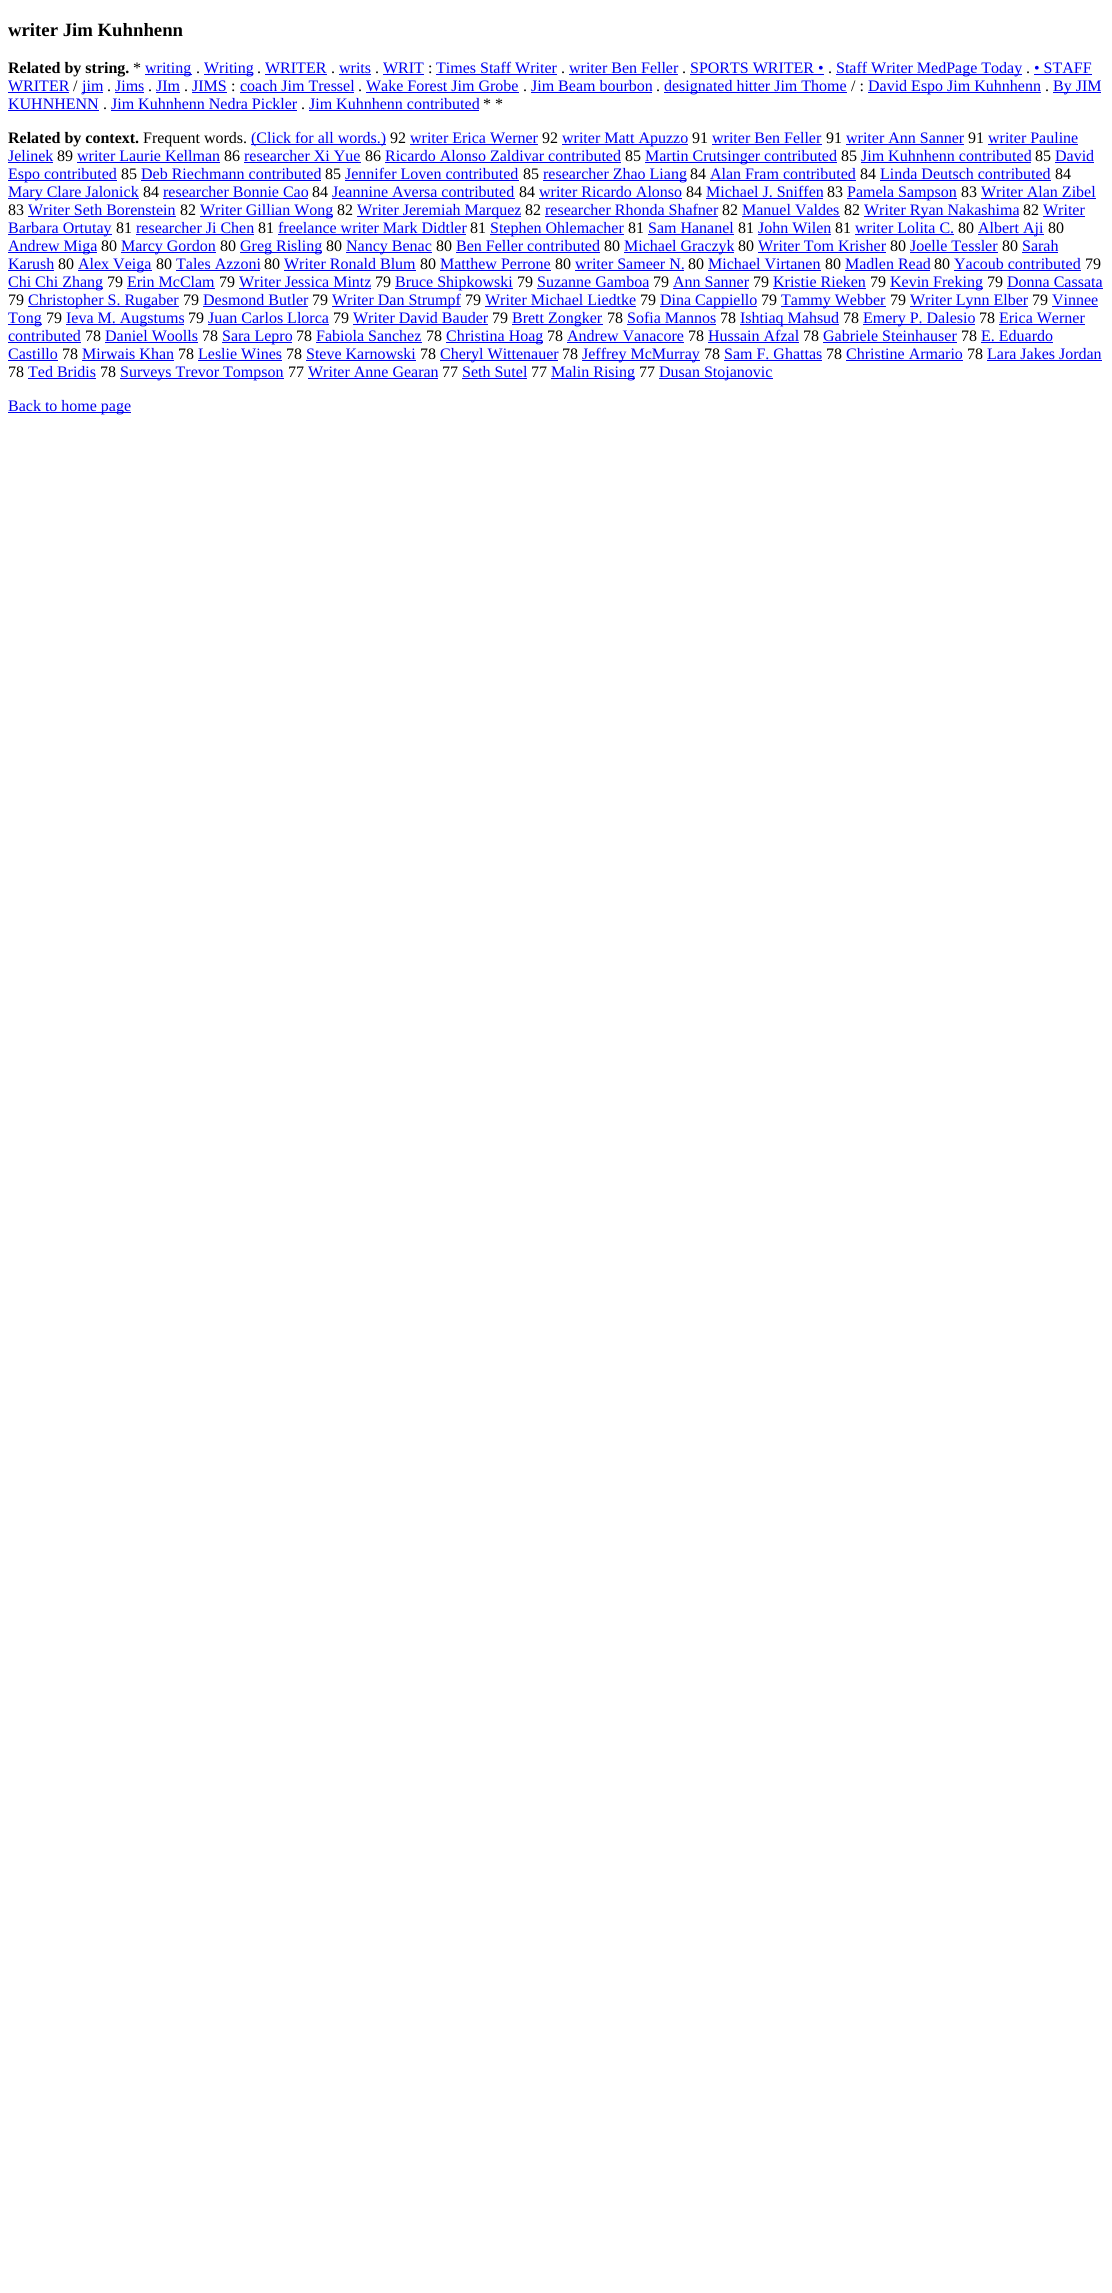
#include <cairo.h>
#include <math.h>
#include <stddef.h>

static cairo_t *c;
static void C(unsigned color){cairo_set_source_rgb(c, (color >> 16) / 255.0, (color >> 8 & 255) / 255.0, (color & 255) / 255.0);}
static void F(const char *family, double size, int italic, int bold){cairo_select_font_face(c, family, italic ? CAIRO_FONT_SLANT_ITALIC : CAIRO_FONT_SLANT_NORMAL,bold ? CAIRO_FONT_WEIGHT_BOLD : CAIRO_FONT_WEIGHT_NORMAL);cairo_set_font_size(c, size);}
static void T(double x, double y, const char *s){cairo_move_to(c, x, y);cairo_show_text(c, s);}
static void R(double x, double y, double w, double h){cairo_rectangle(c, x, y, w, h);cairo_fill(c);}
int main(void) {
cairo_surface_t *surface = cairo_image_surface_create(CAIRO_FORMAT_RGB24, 1112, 2293);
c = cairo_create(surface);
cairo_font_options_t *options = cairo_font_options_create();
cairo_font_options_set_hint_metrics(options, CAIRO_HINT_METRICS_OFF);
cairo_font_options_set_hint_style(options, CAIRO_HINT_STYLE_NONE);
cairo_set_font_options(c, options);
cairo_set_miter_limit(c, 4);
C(0xffffff);
cairo_paint(c);
F("Liberation Serif",18.75,0,1);
C(0x000000);
T(8,36,"writer Jim Kuhnhenn");
F("Liberation Serif",16,0,1);
T(8,73,"Related by string.");
F("Liberation Serif",16,0,0);
T(133,73,"*");
C(0x0000ee);
R(145,74,47,1);
T(145,73,"writing");
C(0x000000);
T(196,73,".");
C(0x0000ee);
R(204,74,49,1);
T(204,73,"Writing");
C(0x000000);
T(257,73,".");
C(0x0000ee);
T(265,73,"WRITER");
R(265,74,62,1);
C(0x000000);
T(331,73,".");
C(0x0000ee);
T(339,73,"writs");
R(339,74,32,1);
C(0x000000);
T(375,73,".");
C(0x0000ee);
T(383,73,"WRIT");
R(383,74,41,1);
C(0x000000);
T(428,73,":");
C(0x0000ee);
T(436,73,"Times Staff Writer");
R(436,74,121,1);
C(0x000000);
T(561,73,".");
C(0x0000ee);
T(569,73,"writer Ben Feller");
R(569,74,109,1);
C(0x000000);
T(682,73,".");
C(0x0000ee);
T(690,73,"SPORTS WRITER •");
R(690,74,134,1);
C(0x000000);
T(828,73,".");
C(0x0000ee);
R(836,74,186,1);
T(836,73,"Staff Writer MedPage Today");
C(0x000000);
T(1026,73,".");
C(0x0000ee);
T(1034,73,"• STAFF");
R(1034,74,58,1);
T(8,91,"WRITER");
R(8,92,61,1);
C(0x000000);
T(73,91,"/");
C(0x0000ee);
R(82,92,21,1);
T(82,91,"jim");
C(0x000000);
T(107,91,".");
C(0x0000ee);
T(115,91,"Jims");
R(115,92,29,1);
C(0x000000);
T(148,91,".");
C(0x0000ee);
T(156,91,"JIm");
R(156,92,24,1);
C(0x000000);
T(184,91,".");
C(0x0000ee);
T(192,91,"JIMS");
R(192,92,35,1);
C(0x000000);
T(231,91,":");
C(0x0000ee);
T(240,91,"coach Jim Tressel");
R(240,92,114,1);
C(0x000000);
T(358,91,".");
C(0x0000ee);
T(366,91,"Wake Forest Jim Grobe");
R(366,92,153,1);
C(0x000000);
T(523,91,".");
C(0x0000ee);
T(531,91,"Jim Beam bourbon");
R(531,92,121,1);
C(0x000000);
T(656,91,".");
C(0x0000ee);
R(664,92,183,1);
T(664,91,"designated hitter Jim Thome");
C(0x000000);
T(851,91,"/ :");
C(0x0000ee);
R(868,92,173,1);
T(868,91,"David Espo Jim Kuhnhenn");
C(0x000000);
T(1045,91,".");
C(0x0000ee);
R(1053,92,48,1);
T(1053,91,"By JIM");
T(8,109,"KUHNHENN");
R(8,110,91,1);
T(111,109,"Jim Kuhnhenn Nedra Pickler");
R(111,110,186,1);
T(309,109,"Jim Kuhnhenn contributed");
R(309,110,170,1);
C(0x000000);
T(483,109,"* *");
T(103,109,".");
T(301,109,".");
F("Liberation Serif",16,0,1);
T(8,143,"Related by context.");
F("Liberation Serif",16,0,0);
T(143,143,"Frequent words.");
C(0x0000ee);
R(251,144,135,1);
T(251,143,"(Click for all words.)");
C(0x000000);
T(390,143,"92");
C(0x0000ee);
T(410,143,"writer Erica Werner");
R(410,144,128,1);
C(0x000000);
T(542,143,"92");
C(0x0000ee);
R(562,144,126,1);
T(562,143,"writer Matt Apuzzo");
C(0x000000);
T(692,143,"91");
C(0x0000ee);
T(712,143,"writer Ben Feller");
R(712,144,110,1);
C(0x000000);
T(826,143,"91");
C(0x0000ee);
T(846,143,"writer Ann Sanner");
R(846,144,118,1);
C(0x000000);
T(968,143,"91");
C(0x0000ee);
T(988,143,"writer Pauline");
R(988,144,90,1);
T(8,161,"Jelinek");
R(8,162,45,1);
C(0x000000);
T(57,161,"89");
C(0x0000ee);
T(77,161,"writer Laurie Kellman");
R(77,162,143,1);
C(0x000000);
T(224,161,"86");
C(0x0000ee);
T(244,161,"researcher Xi Yue");
R(244,162,117,1);
C(0x000000);
T(365,161,"86");
C(0x0000ee);
T(385,161,"Ricardo Alonso Zaldivar contributed");
R(385,162,236,1);
C(0x000000);
T(625,161,"85");
C(0x0000ee);
R(645,162,192,1);
T(645,161,"Martin Crutsinger contributed");
C(0x000000);
T(841,161,"85");
C(0x0000ee);
T(861,161,"Jim Kuhnhenn contributed");
R(861,162,170,1);
C(0x000000);
T(1035,161,"85");
C(0x0000ee);
T(1055,161,"David");
R(1055,162,39,1);
R(8,180,109,1);
T(8,179,"Espo contributed");
C(0x000000);
T(121,179,"85");
C(0x0000ee);
T(141,179,"Deb Riechmann contributed");
R(141,180,180,1);
C(0x000000);
T(325,179,"85");
C(0x0000ee);
T(345,179,"Jennifer Loven contributed");
R(345,180,174,1);
C(0x000000);
T(523,179,"85");
C(0x0000ee);
R(543,180,143,1);
T(543,179,"researcher Zhao Liang");
C(0x000000);
T(690,179,"84");
C(0x0000ee);
T(710,179,"Alan Fram contributed");
R(710,180,146,1);
C(0x000000);
T(860,179,"84");
C(0x0000ee);
T(880,179,"Linda Deutsch contributed");
R(880,180,171,1);
C(0x000000);
T(1055,179,"84");
C(0x0000ee);
R(8,198,131,1);
T(8,197,"Mary Clare Jalonick");
C(0x000000);
T(143,197,"84");
C(0x0000ee);
T(163,197,"researcher Bonnie Cao");
R(163,198,145,1);
C(0x000000);
T(312,197,"84");
C(0x0000ee);
T(332,197,"Jeannine Aversa contributed");
R(332,198,183,1);
C(0x000000);
T(519,197,"84");
C(0x0000ee);
T(539,197,"writer Ricardo Alonso");
R(539,198,143,1);
C(0x000000);
T(686,197,"84");
C(0x0000ee);
T(706,197,"Michael J. Sniffen");
R(706,198,117,1);
C(0x000000);
T(827,197,"83");
C(0x0000ee);
R(847,198,110,1);
T(847,197,"Pamela Sampson");
C(0x000000);
T(961,197,"83");
C(0x0000ee);
T(981,197,"Writer Alan Zibel");
R(981,198,115,1);
C(0x000000);
T(8,215,"83");
C(0x0000ee);
T(28,215,"Writer Seth Borenstein");
R(28,216,148,1);
C(0x000000);
T(180,215,"82");
C(0x0000ee);
R(200,216,133,1);
T(200,215,"Writer Gillian Wong");
C(0x000000);
T(337,215,"82");
C(0x0000ee);
R(357,216,164,1);
T(357,215,"Writer Jeremiah Marquez");
C(0x000000);
T(525,215,"82");
C(0x0000ee);
T(545,215,"researcher Rhonda Shafner");
R(545,216,173,1);
C(0x000000);
T(722,215,"82");
C(0x0000ee);
T(742,215,"Manuel Valdes");
R(742,216,98,1);
C(0x000000);
T(844,215,"82");
C(0x0000ee);
R(864,216,155,1);
T(864,215,"Writer Ryan Nakashima");
C(0x000000);
T(1023,215,"82");
C(0x0000ee);
T(1043,215,"Writer");
R(1043,216,42,1);
R(8,234,104,1);
T(8,233,"Barbara Ortutay");
C(0x000000);
T(116,233,"81");
C(0x0000ee);
T(136,233,"researcher Ji Chen");
R(136,234,118,1);
C(0x000000);
T(258,233,"81");
C(0x0000ee);
T(278,233,"freelance writer Mark Didtler");
R(278,234,188,1);
C(0x000000);
T(470,233,"81");
C(0x0000ee);
R(490,234,134,1);
T(490,233,"Stephen Ohlemacher");
C(0x000000);
T(628,233,"81");
C(0x0000ee);
T(648,233,"Sam Hananel");
R(648,234,86,1);
C(0x000000);
T(738,233,"81");
C(0x0000ee);
T(758,233,"John Wilen");
R(758,234,73,1);
C(0x000000);
T(835,233,"81");
C(0x0000ee);
T(855,233,"writer Lolita C.");
R(855,234,99,1);
C(0x000000);
T(958,233,"80");
C(0x0000ee);
R(978,234,66,1);
T(978,233,"Albert Aji");
C(0x000000);
T(1048,233,"80");
C(0x0000ee);
R(8,252,89,1);
T(8,251,"Andrew Miga");
C(0x000000);
T(101,251,"80");
C(0x0000ee);
R(121,252,95,1);
T(121,251,"Marcy Gordon");
C(0x000000);
T(220,251,"80");
C(0x0000ee);
R(240,252,82,1);
T(240,251,"Greg Risling");
C(0x000000);
T(326,251,"80");
C(0x0000ee);
R(346,252,86,1);
T(346,251,"Nancy Benac");
C(0x000000);
T(436,251,"80");
C(0x0000ee);
T(456,251,"Ben Feller contributed");
R(456,252,144,1);
C(0x000000);
T(604,251,"80");
C(0x0000ee);
R(624,252,110,1);
T(624,251,"Michael Graczyk");
C(0x000000);
T(738,251,"80");
C(0x0000ee);
T(758,251,"Writer Tom Krisher");
R(758,252,128,1);
C(0x000000);
T(890,251,"80");
C(0x0000ee);
T(910,251,"Joelle Tessler");
R(910,252,88,1);
C(0x000000);
T(1002,251,"80");
C(0x0000ee);
T(1022,251,"Sarah");
R(1022,252,36,1);
T(8,269,"Karush");
R(8,270,46,1);
C(0x000000);
T(58,269,"80");
C(0x0000ee);
R(78,270,74,1);
T(78,269,"Alex Veiga");
C(0x000000);
T(156,269,"80");
C(0x0000ee);
T(176,269,"Tales Azzoni");
R(176,270,84,1);
C(0x000000);
T(264,269,"80");
C(0x0000ee);
T(284,269,"Writer Ronald Blum");
R(284,270,132,1);
C(0x000000);
T(420,269,"80");
C(0x0000ee);
T(440,269,"Matthew Perrone");
R(440,270,111,1);
C(0x000000);
T(555,269,"80");
C(0x0000ee);
T(575,269,"writer Sameer N.");
R(575,270,109,1);
C(0x000000);
T(688,269,"80");
C(0x0000ee);
T(708,269,"Michael Virtanen");
R(708,270,113,1);
C(0x000000);
T(825,269,"80");
C(0x0000ee);
T(845,269,"Madlen Read");
R(845,270,85,1);
C(0x000000);
T(934,269,"80");
C(0x0000ee);
T(954,269,"Yacoub contributed");
R(954,270,127,1);
C(0x000000);
T(1085,269,"79");
C(0x0000ee);
R(8,288,95,1);
T(8,287,"Chi Chi Zhang");
C(0x000000);
T(107,287,"79");
C(0x0000ee);
T(127,287,"Erin McClam");
R(127,288,88,1);
C(0x000000);
T(219,287,"79");
C(0x0000ee);
T(239,287,"Writer Jessica Mintz");
R(239,288,132,1);
C(0x000000);
T(375,287,"79");
C(0x0000ee);
R(395,288,118,1);
T(395,287,"Bruce Shipkowski");
C(0x000000);
T(517,287,"79");
C(0x0000ee);
T(537,287,"Suzanne Gamboa");
R(537,288,112,1);
C(0x000000);
T(653,287,"79");
C(0x0000ee);
T(673,287,"Ann Sanner");
R(673,288,76,1);
C(0x000000);
T(753,287,"79");
C(0x0000ee);
T(773,287,"Kristie Rieken");
R(773,288,93,1);
C(0x000000);
T(870,287,"79");
C(0x0000ee);
R(890,288,93,1);
T(890,287,"Kevin Freking");
C(0x000000);
T(987,287,"79");
C(0x0000ee);
T(1007,287,"Donna Cassata");
R(1007,288,96,1);
C(0x000000);
T(8,305,"79");
C(0x0000ee);
R(28,306,151,1);
T(28,305,"Christopher S. Rugaber");
C(0x000000);
T(183,305,"79");
C(0x0000ee);
T(203,305,"Desmond Butler");
R(203,306,105,1);
C(0x000000);
T(312,305,"79");
C(0x0000ee);
R(332,306,129,1);
T(332,305,"Writer Dan Strumpf");
C(0x000000);
T(465,305,"79");
C(0x0000ee);
T(485,305,"Writer Michael Liedtke");
R(485,306,151,1);
C(0x000000);
T(640,305,"79");
C(0x0000ee);
R(660,306,97,1);
T(660,305,"Dina Cappiello");
C(0x000000);
T(761,305,"79");
C(0x0000ee);
R(781,306,105,1);
T(781,305,"Tammy Webber");
C(0x000000);
T(890,305,"79");
C(0x0000ee);
R(910,306,118,1);
T(910,305,"Writer Lynn Elber");
C(0x000000);
T(1032,305,"79");
C(0x0000ee);
T(1052,305,"Vinnee");
R(1052,306,46,1);
R(8,324,34,1);
T(8,323,"Tong");
C(0x000000);
T(46,323,"79");
C(0x0000ee);
R(66,324,118,1);
T(66,323,"Ieva M. Augstums");
C(0x000000);
T(188,323,"79");
C(0x0000ee);
T(208,323,"Juan Carlos Llorca");
R(208,324,121,1);
C(0x000000);
T(333,323,"79");
C(0x0000ee);
T(353,323,"Writer David Bauder");
R(353,324,135,1);
C(0x000000);
T(492,323,"79");
C(0x0000ee);
R(512,324,91,1);
T(512,323,"Brett Zongker");
C(0x000000);
T(607,323,"78");
C(0x0000ee);
T(627,323,"Sofia Mannos");
R(627,324,89,1);
C(0x000000);
T(720,323,"78");
C(0x0000ee);
R(740,324,99,1);
T(740,323,"Ishtiaq Mahsud");
C(0x000000);
T(843,323,"78");
C(0x0000ee);
R(863,324,112,1);
T(863,323,"Emery P. Dalesio");
C(0x000000);
T(979,323,"78");
C(0x0000ee);
T(999,323,"Erica Werner");
R(999,324,86,1);
T(8,341,"contributed");
R(8,342,73,1);
C(0x000000);
T(85,341,"78");
C(0x0000ee);
T(105,341,"Daniel Woolls");
R(105,342,93,1);
C(0x000000);
T(202,341,"78");
C(0x0000ee);
R(222,342,70,1);
T(222,341,"Sara Lepro");
C(0x000000);
T(296,341,"78");
C(0x0000ee);
T(316,341,"Fabiola Sanchez");
R(316,342,106,1);
C(0x000000);
T(426,341,"78");
C(0x0000ee);
R(446,342,97,1);
T(446,341,"Christina Hoag");
C(0x000000);
T(547,341,"78");
C(0x0000ee);
T(567,341,"Andrew Vanacore");
R(567,342,117,1);
C(0x000000);
T(688,341,"78");
C(0x0000ee);
T(708,341,"Hussain Afzal");
R(708,342,91,1);
C(0x000000);
T(803,341,"78");
C(0x0000ee);
T(823,341,"Gabriele Steinhauser");
R(823,342,134,1);
C(0x000000);
T(961,341,"78");
C(0x0000ee);
T(981,341,"E. Eduardo");
R(981,342,72,1);
T(8,359,"Castillo");
R(8,360,50,1);
C(0x000000);
T(62,359,"78");
C(0x0000ee);
T(82,359,"Mirwais Khan");
R(82,360,92,1);
C(0x000000);
T(178,359,"78");
C(0x0000ee);
T(198,359,"Leslie Wines");
R(198,360,84,1);
C(0x000000);
T(286,359,"78");
C(0x0000ee);
T(306,359,"Steve Karnowski");
R(306,360,110,1);
C(0x000000);
T(420,359,"78");
C(0x0000ee);
R(440,360,118,1);
T(440,359,"Cheryl Wittenauer");
C(0x000000);
T(562,359,"78");
C(0x0000ee);
R(582,360,118,1);
T(582,359,"Jeffrey McMurray");
C(0x000000);
T(704,359,"78");
C(0x0000ee);
T(724,359,"Sam F. Ghattas");
R(724,360,98,1);
C(0x000000);
T(826,359,"78");
C(0x0000ee);
T(846,359,"Christine Armario");
R(846,360,117,1);
C(0x000000);
T(967,359,"78");
C(0x0000ee);
T(987,359,"Lara Jakes Jordan");
R(987,360,115,1);
C(0x000000);
T(8,377,"78");
C(0x0000ee);
T(28,377,"Ted Bridis");
R(28,378,68,1);
C(0x000000);
T(100,377,"78");
C(0x0000ee);
R(120,378,164,1);
T(120,377,"Surveys Trevor Tompson");
C(0x000000);
T(288,377,"77");
C(0x0000ee);
T(308,377,"Writer Anne Gearan");
R(308,378,130,1);
C(0x000000);
T(442,377,"77");
C(0x0000ee);
T(462,377,"Seth Sutel");
R(462,378,65,1);
C(0x000000);
T(531,377,"77");
C(0x0000ee);
R(551,378,84,1);
T(551,377,"Malin Rising");
C(0x000000);
T(639,377,"77");
C(0x0000ee);
R(659,378,114,1);
T(659,377,"Dusan Stojanovic");
R(8,412,123,1);
T(8,411,"Back to home page");
cairo_surface_write_to_png(surface, "o.png");
cairo_font_options_destroy(options);
cairo_destroy(c);
cairo_surface_destroy(surface);
return 0;
}
